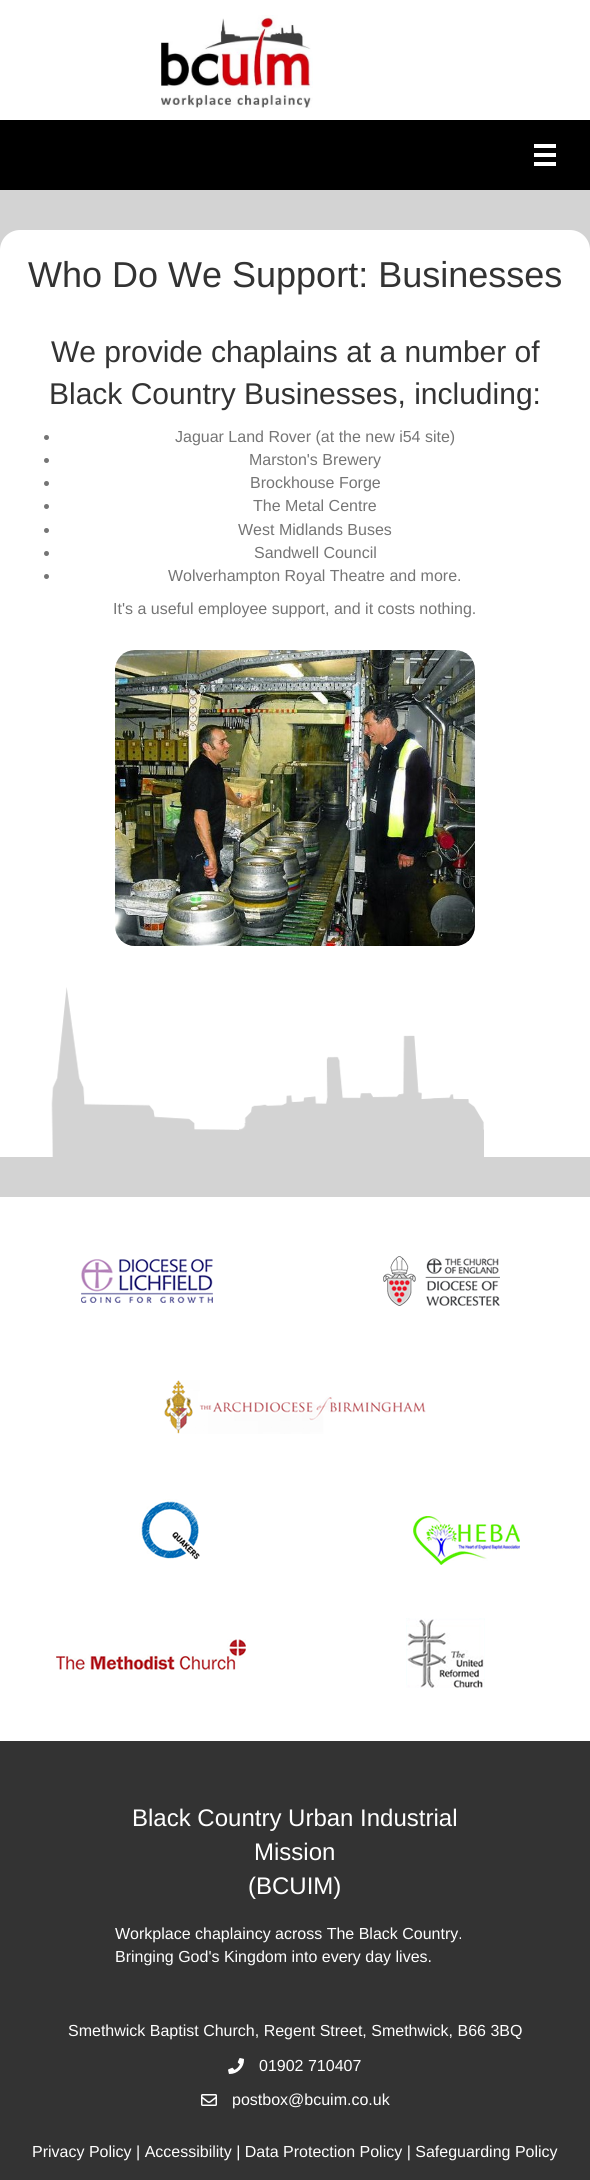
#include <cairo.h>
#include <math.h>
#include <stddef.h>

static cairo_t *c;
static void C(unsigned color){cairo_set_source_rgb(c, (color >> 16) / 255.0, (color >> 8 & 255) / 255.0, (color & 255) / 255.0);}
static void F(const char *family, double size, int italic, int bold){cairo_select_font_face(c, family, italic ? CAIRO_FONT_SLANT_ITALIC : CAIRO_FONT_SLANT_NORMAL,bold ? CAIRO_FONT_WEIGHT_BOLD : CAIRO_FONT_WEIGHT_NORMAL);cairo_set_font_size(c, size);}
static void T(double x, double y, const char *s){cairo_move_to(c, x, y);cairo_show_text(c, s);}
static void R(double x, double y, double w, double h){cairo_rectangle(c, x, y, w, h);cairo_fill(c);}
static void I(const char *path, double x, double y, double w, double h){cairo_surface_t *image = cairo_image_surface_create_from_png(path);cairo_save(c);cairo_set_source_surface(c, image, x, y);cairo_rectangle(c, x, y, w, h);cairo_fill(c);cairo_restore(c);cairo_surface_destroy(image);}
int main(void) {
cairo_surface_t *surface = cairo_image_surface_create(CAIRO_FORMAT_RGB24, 590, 2180);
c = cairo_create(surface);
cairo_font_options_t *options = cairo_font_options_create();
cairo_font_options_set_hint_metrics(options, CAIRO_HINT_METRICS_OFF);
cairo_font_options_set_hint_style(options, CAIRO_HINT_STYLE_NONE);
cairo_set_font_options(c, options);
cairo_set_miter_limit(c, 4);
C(0xffffff);
cairo_paint(c);
I("1.png",161,15,152,93);
C(0x000000);
R(0,120,590,70);
C(0xffffff);
R(534,144,22,4);
R(534,153,22,4);
R(534,162,22,4);
C(0xd3d3d3);
R(0,190,590,1007);
C(0xffffff);
cairo_new_path(c);
cairo_move_to(c,20,230);
cairo_line_to(c,570,230);
cairo_curve_to(c,581,230,590,239,590,250);
cairo_line_to(c,590,1157);
cairo_line_to(c,0,1157);
cairo_line_to(c,0,250);
cairo_curve_to(c,0,239,9,230,20,230);
cairo_close_path(c);
cairo_fill(c);
F("Liberation Sans",36,0,0);
C(0x333333);
T(28,287,"Who Do We Support: Businesses");
F("Liberation Sans",30,0,0);
T(51,362,"We provide chaplains at a number of");
T(49,404,"Black Country Businesses, including:");
C(0x757575);
cairo_new_path(c);
cairo_arc(c,46.5,437.5,2.5,0,2 * M_PI);
cairo_fill(c);
F("Liberation Sans",16,0,0);
T(175,442,"Jaguar Land Rover (at the new i54 site)");
cairo_new_path(c);
cairo_arc(c,46.5,460.5,2.5,0,2 * M_PI);
cairo_fill(c);
T(249,465,"Marston's Brewery");
cairo_new_path(c);
cairo_arc(c,46.5,483.5,2.5,0,2 * M_PI);
cairo_fill(c);
T(250,488,"Brockhouse Forge");
cairo_new_path(c);
cairo_arc(c,46.5,506.5,2.5,0,2 * M_PI);
cairo_fill(c);
T(253,511,"The Metal Centre");
cairo_new_path(c);
cairo_arc(c,46.5,530.5,2.5,0,2 * M_PI);
cairo_fill(c);
T(238,535,"West Midlands Buses");
cairo_new_path(c);
cairo_arc(c,46.5,553.5,2.5,0,2 * M_PI);
cairo_fill(c);
T(254,558,"Sandwell Council");
cairo_new_path(c);
cairo_arc(c,46.5,576.5,2.5,0,2 * M_PI);
cairo_fill(c);
T(168,581,"Wolverhampton Royal Theatre and more.");
T(113,614,"It's a useful employee support, and it costs nothing.");
I("2.png",115,650,360,296);
I("3.png",51,987,433,170);
I("4.png",81,1259,132,44);
I("5.png",383,1256,117,50);
I("6.png",164,1380,262,54);
I("7.png",139,1499,61,61);
I("8.png",413,1516,107,49);
I("9.png",56,1639,190,31);
I("10.png",406,1618,79,70);
C(0x333333);
R(0,1741,590,439);
F("Liberation Sans",24,0,0);
C(0xffffff);
T(132,1826,"Black Country Urban Industrial");
T(254,1860,"Mission");
T(248,1894,"(BCUIM)");
F("Liberation Sans",16,0,0);
T(115,1939,"Workplace chaplaincy across The Black Country.");
T(115,1962,"Bringing God's Kingdom into every day lives.");
T(68,2036,"Smethwick Baptist Church, Regent Street, Smethwick, B66 3BQ");
I("11.png",228,2058,16,16);
T(259,2071,"01902 710407");
I("12.png",201,2094,16,12);
T(232,2105,"postbox@bcuim.co.uk");
T(32,2157,"Privacy Policy | Accessibility | Data Protection Policy | Safeguarding Policy");
cairo_surface_write_to_png(surface, "o.png");
cairo_font_options_destroy(options);
cairo_destroy(c);
cairo_surface_destroy(surface);
return 0;
}
